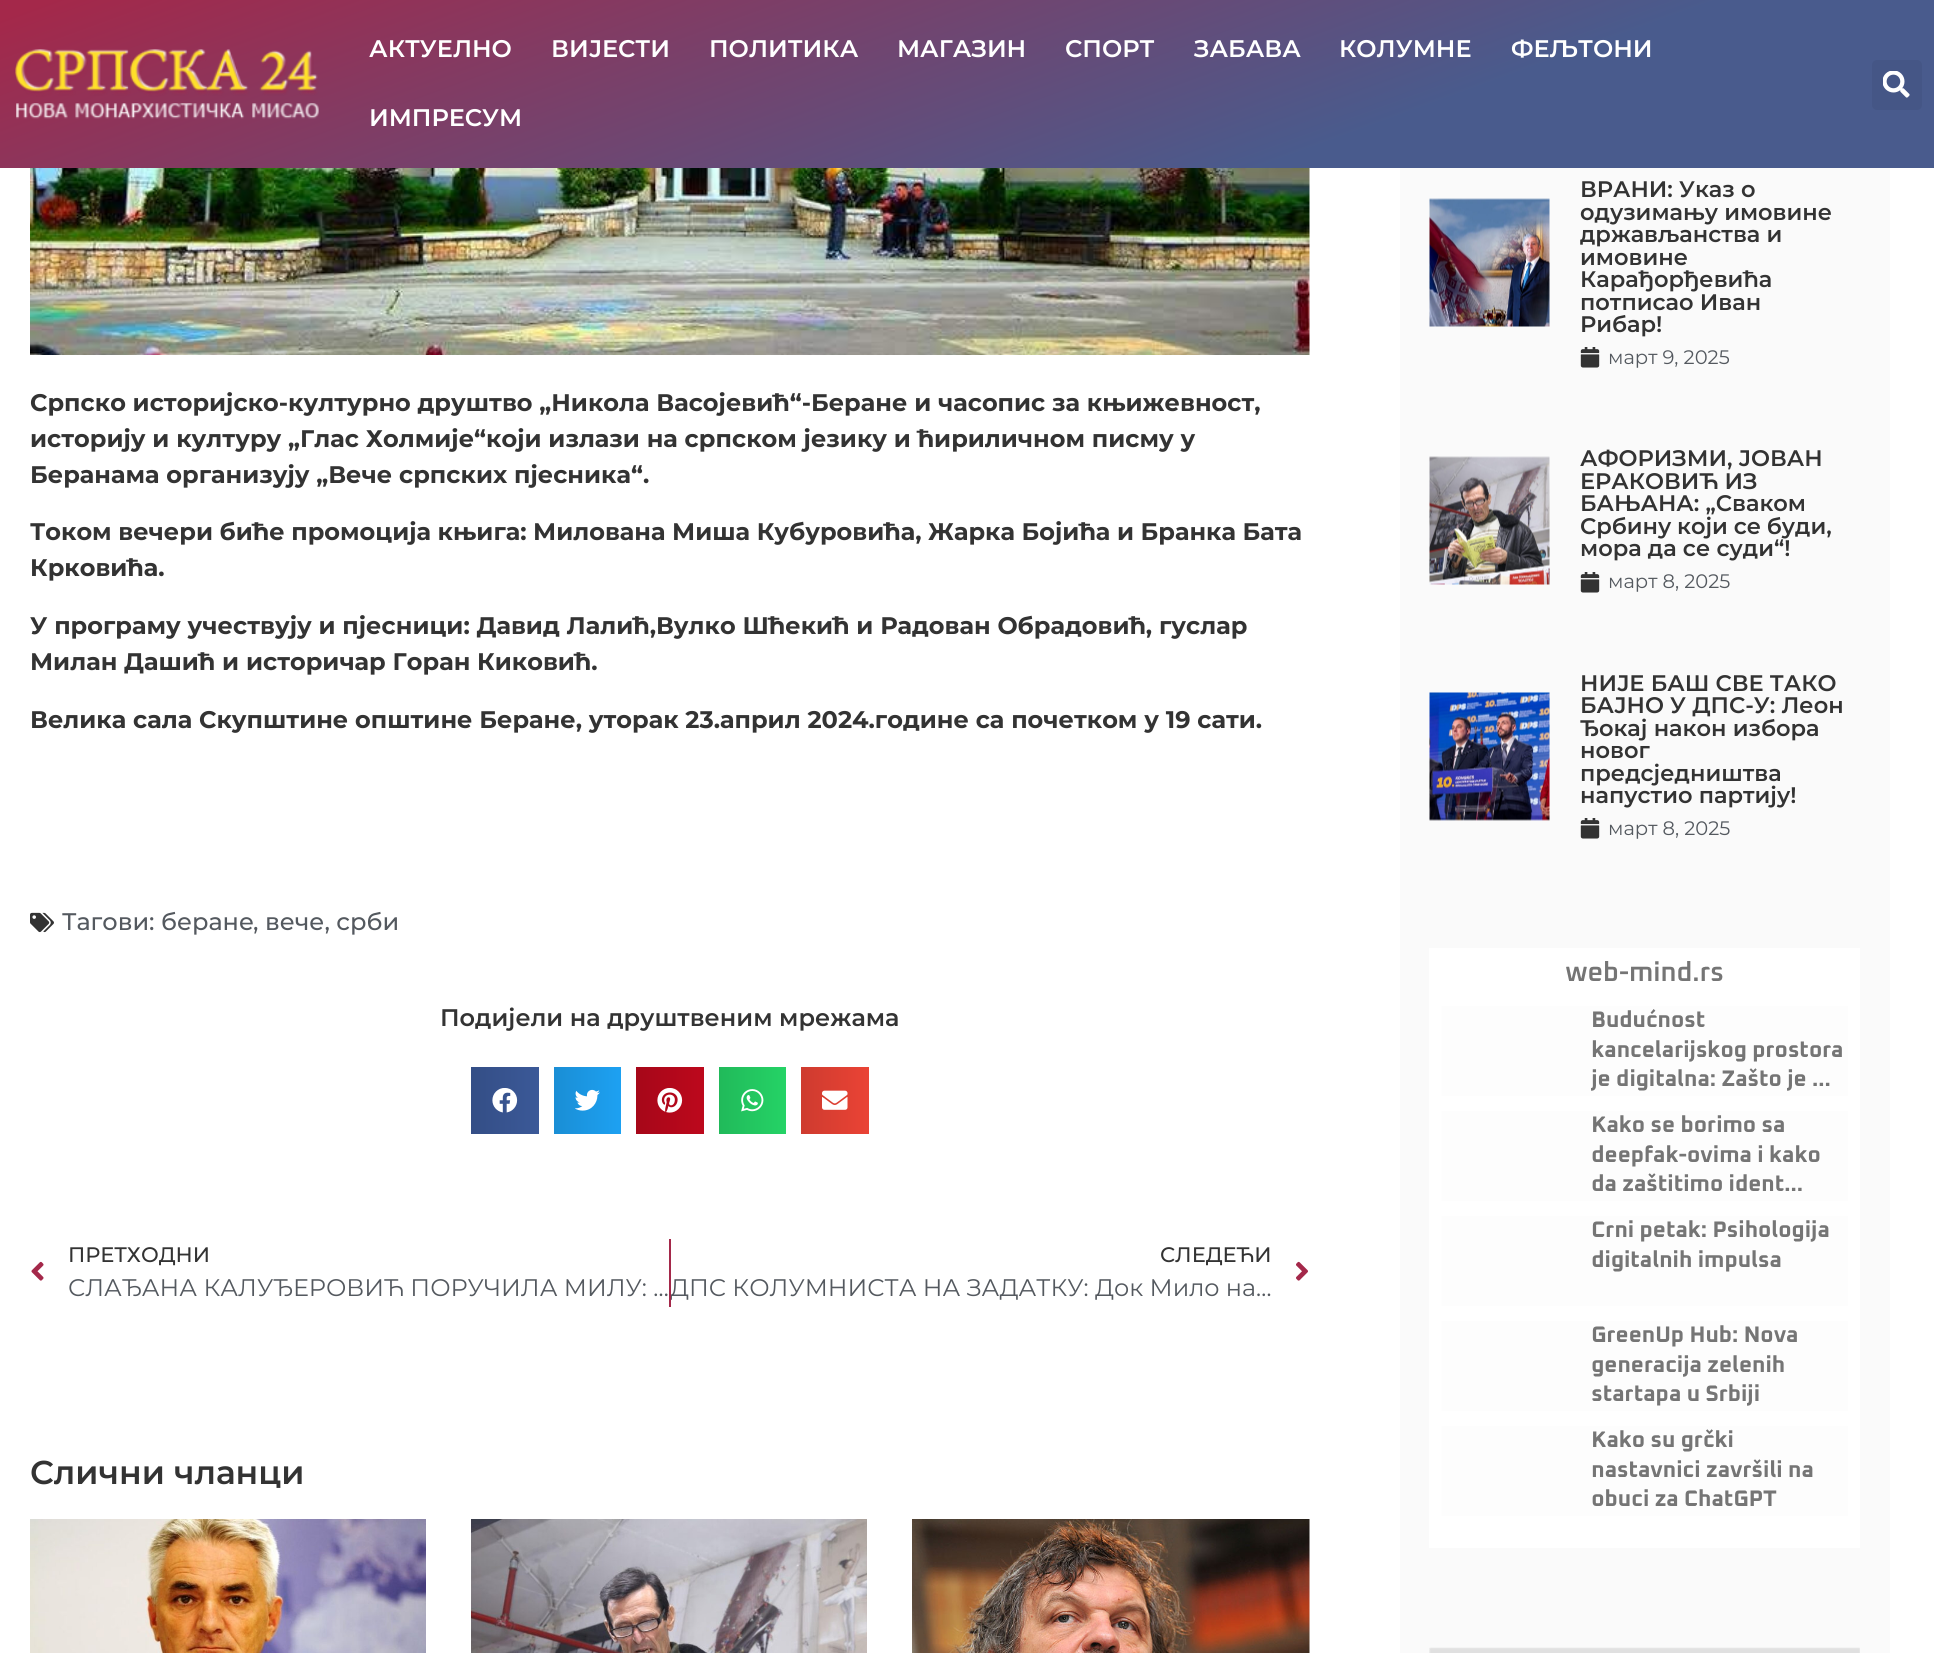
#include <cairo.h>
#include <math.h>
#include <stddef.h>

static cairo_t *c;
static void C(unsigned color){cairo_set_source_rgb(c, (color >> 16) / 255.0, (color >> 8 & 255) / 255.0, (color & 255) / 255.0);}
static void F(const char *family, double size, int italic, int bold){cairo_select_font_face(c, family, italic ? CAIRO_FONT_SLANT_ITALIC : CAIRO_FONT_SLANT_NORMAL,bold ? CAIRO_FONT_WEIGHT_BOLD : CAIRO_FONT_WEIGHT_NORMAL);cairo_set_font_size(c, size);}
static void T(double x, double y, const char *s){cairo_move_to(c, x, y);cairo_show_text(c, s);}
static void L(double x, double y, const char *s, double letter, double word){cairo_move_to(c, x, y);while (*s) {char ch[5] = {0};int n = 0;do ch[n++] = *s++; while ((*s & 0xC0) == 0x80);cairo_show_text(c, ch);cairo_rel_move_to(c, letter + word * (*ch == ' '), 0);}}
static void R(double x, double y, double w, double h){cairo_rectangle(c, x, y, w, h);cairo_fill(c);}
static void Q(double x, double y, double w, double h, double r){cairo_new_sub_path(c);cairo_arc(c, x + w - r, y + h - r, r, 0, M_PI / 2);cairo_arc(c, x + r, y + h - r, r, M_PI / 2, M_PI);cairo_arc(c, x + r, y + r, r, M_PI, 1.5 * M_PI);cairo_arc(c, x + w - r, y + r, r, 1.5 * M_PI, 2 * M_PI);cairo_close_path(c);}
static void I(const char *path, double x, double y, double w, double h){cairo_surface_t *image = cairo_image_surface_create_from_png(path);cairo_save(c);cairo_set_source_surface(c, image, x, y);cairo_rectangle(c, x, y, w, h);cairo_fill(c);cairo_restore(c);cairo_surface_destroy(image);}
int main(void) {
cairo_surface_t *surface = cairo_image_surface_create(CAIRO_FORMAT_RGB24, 1934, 1653);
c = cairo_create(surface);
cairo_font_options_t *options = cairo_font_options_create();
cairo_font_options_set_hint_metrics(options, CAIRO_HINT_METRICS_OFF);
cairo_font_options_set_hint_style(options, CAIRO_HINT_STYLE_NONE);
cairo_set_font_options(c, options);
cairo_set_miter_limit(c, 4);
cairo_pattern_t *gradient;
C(0xffffff);
cairo_paint(c);
gradient = cairo_pattern_create_linear(827,-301,1108,469);
cairo_pattern_add_color_stop_rgba(gradient,.02,0.643,0.157,0.29,1);
cairo_pattern_add_color_stop_rgba(gradient,.72,0.286,0.357,0.553,1);
cairo_set_source(c,gradient);
cairo_pattern_destroy(gradient);
R(0,0,1934,168);
I("1.png",15,49,304,70);
F("Montserrat SemiBold",24,0,0);
C(0xffffff);
T(369,57,"АКТУЕЛНО");
T(551,57,"ВИЈЕСТИ");
T(709,57,"ПОЛИТИКА");
T(897,57,"МАГАЗИН");
T(1065,57,"СПОРТ");
T(1194,57,"ЗАБАВА");
T(1339,57,"КОЛУМНЕ");
T(1511,57,"ФЕЉТОНИ");
T(369,126,"ИМПРЕСУМ");
C(0x455686);
Q(1872,60,50,50,5);
cairo_fill(c);
I("2.png",1883,71,27,27);
I("3.png",30,168,1280,187);
F("Montserrat",24,0,1);
C(0x333333);
T(30,411,"Српско историјско-културно друштво „Никола Васојевић“-Беране и часопис за књижевност,");
T(30,447,"историју и културу „Глас Холмије“који излази на српском језику и ћириличном писму у");
T(30,483,"Беранама организују „Вече српских пјесника“.");
L(30,540,"Током вечери биће промоција књига: Милована Миша Кубуровића, Жарка Бојића и Бранка Бата",0,-.2);
T(30,576,"Крковића.");
T(30,634,"У програму учествују и пјесници: Давид Лалић,Вулко Шћекић и Радован Обрадовић, гуслар");
T(30,670,"Милан Дашић и историчар Горан Киковић.");
T(30,728,"Велика сала Скупштине општине Беране, уторак 23.април 2024.године са почетком у 19 сати.");
I("4.png",30,912,24,21);
F("Montserrat Medium",24,0,0);
C(0x54595f);
T(62,930,"Тагови: беране");
T(253,930,", вече, срби");
F("Montserrat SemiBold",24,0,0);
C(0x333333);
T(440,1026,"Подијели на друштвеним мрежама");
gradient = cairo_pattern_create_linear(471,1100,539,1100);
cairo_pattern_add_color_stop_rgba(gradient,0,0.204,0.306,0.525,1);
cairo_pattern_add_color_stop_rgba(gradient,1,0.231,0.349,0.596,1);
cairo_set_source(c,gradient);
cairo_pattern_destroy(gradient);
R(471,1067,68,67);
I("5.png",492,1088,26,25);
gradient = cairo_pattern_create_linear(554,1100,621,1100);
cairo_pattern_add_color_stop_rgba(gradient,0,0.102,0.557,0.835,1);
cairo_pattern_add_color_stop_rgba(gradient,1,0.114,0.631,0.949,1);
cairo_set_source(c,gradient);
cairo_pattern_destroy(gradient);
R(554,1067,67,67);
I("6.png",575,1089,25,22);
gradient = cairo_pattern_create_linear(636,1100,704,1100);
cairo_pattern_add_color_stop_rgba(gradient,0,0.651,0.027,0.098,1);
cairo_pattern_add_color_stop_rgba(gradient,1,0.741,0.031,0.11,1);
cairo_set_source(c,gradient);
cairo_pattern_destroy(gradient);
R(636,1067,68,67);
I("7.png",657,1088,26,25);
gradient = cairo_pattern_create_linear(719,1100,786,1100);
cairo_pattern_add_color_stop_rgba(gradient,0,0.129,0.729,0.353,1);
cairo_pattern_add_color_stop_rgba(gradient,1,0.145,0.827,0.4,1);
cairo_set_source(c,gradient);
cairo_pattern_destroy(gradient);
R(719,1067,67,67);
I("8.png",741,1089,23,23);
gradient = cairo_pattern_create_linear(801,1100,869,1100);
cairo_pattern_add_color_stop_rgba(gradient,0,0.808,0.231,0.184,1);
cairo_pattern_add_color_stop_rgba(gradient,1,0.918,0.263,0.208,1);
cairo_set_source(c,gradient);
cairo_pattern_destroy(gradient);
R(801,1067,68,67);
I("9.png",822,1090,26,20);
I("10.png",31,1261,13,20);
F("Montserrat Medium",21,0,0);
C(0x333333);
T(68,1262,"ПРЕТХОДНИ");
F("Montserrat",24,0,0);
C(0x54595f);
T(68,1296,"СЛАЂАНА КАЛУЂЕРОВИЋ ПОРУЧИЛА МИЛУ: …");
C(0xa4284a);
R(669,1239,2,68);
F("Montserrat Medium",21,0,0);
C(0x333333);
T(1160,1262,"СЛЕДЕЋИ");
cairo_save(c);
cairo_rectangle(c,671,1271,601,36);
cairo_clip(c);
F("Montserrat",24,0,0);
C(0x54595f);
T(670,1296,"ДПС КОЛУМНИСТА НА ЗАДАТКУ: Док Мило на…");
cairo_restore(c);
I("11.png",1296,1261,12,20);
F("Montserrat SemiBold",33,0,0);
T(30,1484,"Слични чланци");
I("12.png",30,1519,396,134);
I("13.png",471,1519,396,134);
I("14.png",912,1519,398,134);
C(0xfafafa);
R(1400,168,490,1485);
I("15.png",1429,198,121,129);
F("Montserrat SemiBold",22.5,0,0);
C(0x333333);
T(1580,197,"ВРАНИ: Указ о");
T(1580,220,"одузимању имовине");
T(1580,242,"држављанства и");
T(1580,265,"имовине");
T(1580,287,"Карађорђевића");
T(1580,310,"потписао Иван");
T(1580,332,"Рибар!");
I("16.png",1580,347,20,21);
F("Montserrat",19.5,0,0);
C(0x54595f);
T(1608,364,"март 9, 2025");
I("17.png",1429,456,121,129);
F("Montserrat SemiBold",22.5,0,0);
C(0x333333);
T(1580,466,"АФОРИЗМИ, ЈОВАН");
T(1580,489,"ЕРАКОВИЋ ИЗ");
T(1580,511,"БАЊАНА: „Сваком");
L(1580,534,"Србину који се буди,",0,-.5);
T(1580,556,"мора да се суди“!");
I("16.png",1580,572,20,21);
F("Montserrat",19.5,0,0);
C(0x54595f);
T(1608,588,"март 8, 2025");
I("18.png",1429,692,121,129);
F("Montserrat SemiBold",22.5,0,0);
C(0x333333);
T(1580,691,"НИЈЕ БАШ СВЕ ТАКО");
T(1580,713,"БАЈНО У ДПС-У: Леон");
T(1580,736,"Ђокај након избора");
T(1580,758,"новог");
T(1580,781,"предсједништва");
T(1580,803,"напустио партију!");
I("16.png",1580,818,20,21);
F("Montserrat",19.5,0,0);
C(0x54595f);
T(1608,835,"март 8, 2025");
I("19.png",1429,948,431,600);
I("20.png",1429,1647,431,6);
cairo_surface_write_to_png(surface, "o.png");
cairo_font_options_destroy(options);
cairo_destroy(c);
cairo_surface_destroy(surface);
return 0;
}
